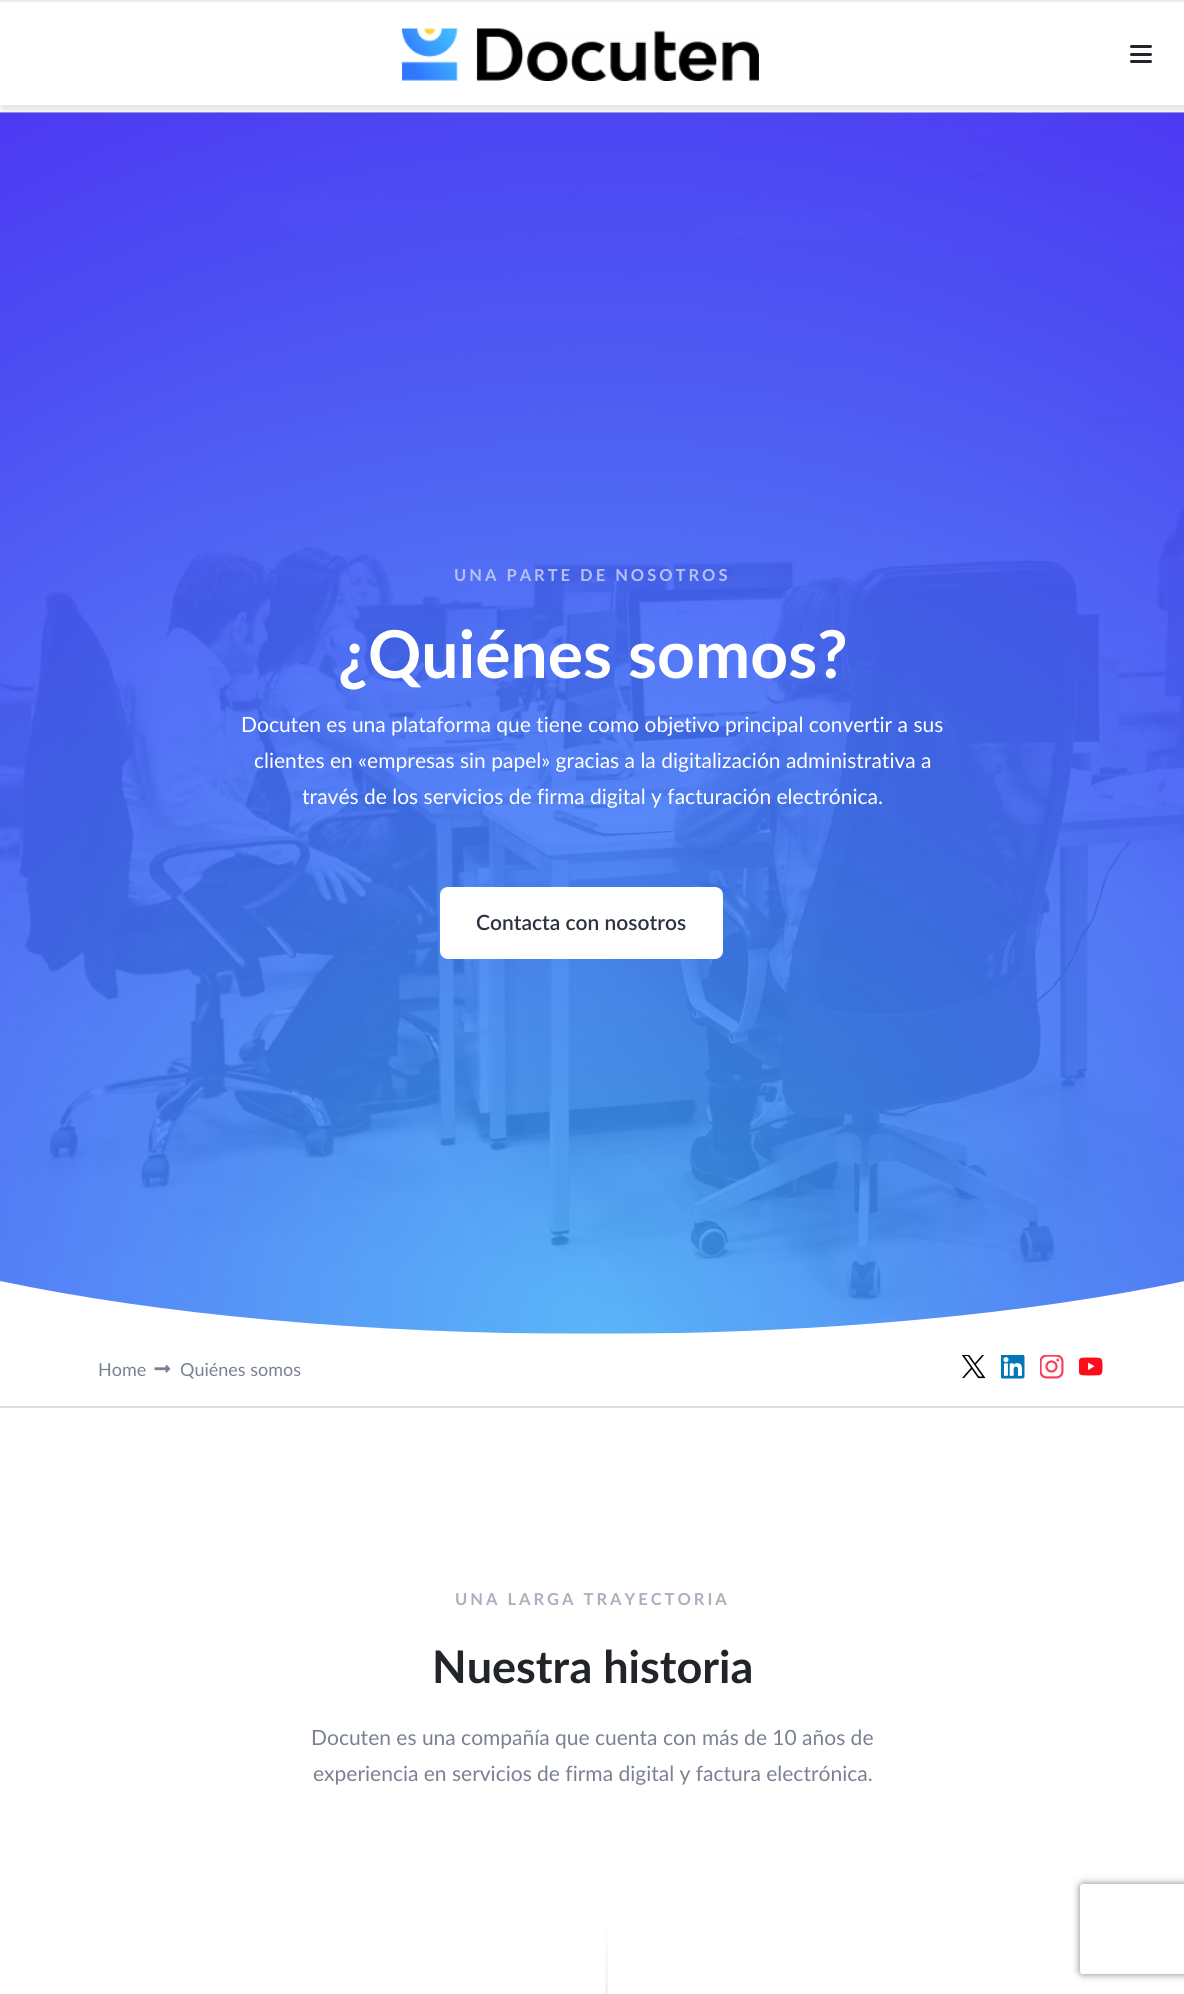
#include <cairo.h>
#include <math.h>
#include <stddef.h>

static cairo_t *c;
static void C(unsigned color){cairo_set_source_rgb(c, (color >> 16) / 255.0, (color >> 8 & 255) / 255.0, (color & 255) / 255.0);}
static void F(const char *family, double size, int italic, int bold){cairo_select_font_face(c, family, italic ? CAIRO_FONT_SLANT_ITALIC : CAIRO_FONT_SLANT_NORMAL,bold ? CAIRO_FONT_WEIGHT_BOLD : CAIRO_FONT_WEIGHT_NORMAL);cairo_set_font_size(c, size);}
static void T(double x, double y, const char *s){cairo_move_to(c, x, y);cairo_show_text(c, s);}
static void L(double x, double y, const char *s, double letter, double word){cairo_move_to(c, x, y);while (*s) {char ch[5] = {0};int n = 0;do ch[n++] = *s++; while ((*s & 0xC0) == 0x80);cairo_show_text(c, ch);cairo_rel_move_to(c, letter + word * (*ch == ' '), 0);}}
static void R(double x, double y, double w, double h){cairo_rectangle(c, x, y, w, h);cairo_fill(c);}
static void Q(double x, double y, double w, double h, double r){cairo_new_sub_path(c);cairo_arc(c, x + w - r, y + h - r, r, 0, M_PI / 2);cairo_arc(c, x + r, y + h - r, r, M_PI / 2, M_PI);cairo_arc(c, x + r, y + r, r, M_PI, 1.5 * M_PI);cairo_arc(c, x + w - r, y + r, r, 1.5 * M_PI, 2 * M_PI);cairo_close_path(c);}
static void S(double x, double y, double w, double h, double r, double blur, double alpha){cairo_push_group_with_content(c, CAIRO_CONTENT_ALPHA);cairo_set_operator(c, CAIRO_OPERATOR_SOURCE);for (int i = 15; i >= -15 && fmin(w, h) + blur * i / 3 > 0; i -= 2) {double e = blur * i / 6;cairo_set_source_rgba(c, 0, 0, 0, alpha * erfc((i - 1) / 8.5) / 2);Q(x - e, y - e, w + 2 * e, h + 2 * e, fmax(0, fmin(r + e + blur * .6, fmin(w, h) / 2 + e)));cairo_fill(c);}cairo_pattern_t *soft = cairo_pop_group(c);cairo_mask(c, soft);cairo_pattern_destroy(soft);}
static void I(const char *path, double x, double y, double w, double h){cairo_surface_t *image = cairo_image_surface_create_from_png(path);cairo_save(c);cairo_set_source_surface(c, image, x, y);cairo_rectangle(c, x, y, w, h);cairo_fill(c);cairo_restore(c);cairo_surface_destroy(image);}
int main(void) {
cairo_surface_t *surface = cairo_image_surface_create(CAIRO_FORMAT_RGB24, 1184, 1994);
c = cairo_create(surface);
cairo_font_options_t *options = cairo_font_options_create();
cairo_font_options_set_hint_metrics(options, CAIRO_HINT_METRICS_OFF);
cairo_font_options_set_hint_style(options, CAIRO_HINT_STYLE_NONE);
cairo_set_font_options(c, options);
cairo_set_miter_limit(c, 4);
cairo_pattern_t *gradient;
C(0xffffff);
cairo_paint(c);
I("2.png",0,112,1184,1222);
C(0x596273);
S(2,5,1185,105,0,4.5,.2);
C(0xffffff);
R(0,2,1184,103);
C(0xebecf0);
R(0,0,1184,2);
I("1.png",402,28,357,53);
C(0x212529);
Q(1130,45,22,3,1.5);
cairo_fill(c);
Q(1130,53,22,3,1.5);
cairo_fill(c);
Q(1130,60,22,3,1.5);
cairo_fill(c);
F("Lato",16.5,0,1);
C(0xb6c1f7);
L(454,581,"UNA PARTE DE NOSOTROS",3,0);
F("Lato",66,0,1);
C(0xffffff);
T(338,678,"¿Quiénes somos?");
F("Lato",21,0,0);
T(241,732,"Docuten es una plataforma que tiene como objetivo principal convertir a sus");
T(254,768,"clientes en «empresas sin papel» gracias a la digitalización administrativa a");
T(302,804,"través de los servicios de firma digital y facturación electrónica.");
Q(440,887,283,72,8);
cairo_fill(c);
F("Lato SemiBold",21,0,0);
C(0x2c3340);
T(476,930,"Contacta con nosotros");
C(0xffffff);
cairo_set_fill_rule(c,CAIRO_FILL_RULE_EVEN_ODD);
cairo_new_path(c);
cairo_move_to(c,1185,1281);
cairo_line_to(c,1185,1334);
cairo_line_to(c,0,1334);
cairo_line_to(c,0,1281);
cairo_curve_to(c,156,1314,364,1334,593,1334);
cairo_curve_to(c,821,1334,1029,1314,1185,1281);
cairo_close_path(c);
cairo_fill(c);
C(0xdfdfdf);
R(0,1406,1184,2);
F("Lato",18,0,0);
C(0x7a8292);
T(98,1376,"Home");
I("3.png",154,1364,17,9);
T(180,1376,"Quiénes somos");
I("4.png",962,1355,24,24);
I("5.png",1001,1355,24,24);
I("6.png",1040,1355,24,24);
I("7.png",1079,1357,24,19);
F("Lato",16.5,0,1);
C(0xa9b0be);
L(455,1605,"UNA LARGA TRAYECTORIA",3,0);
F("Lato",45,0,1);
C(0x212529);
T(432,1683,"Nuestra historia");
F("Lato",21,0,0);
C(0x7a8292);
T(311,1745,"Docuten es una compañía que cuenta con más de 10 años de");
T(313,1781,"experiencia en servicios de firma digital y factura electrónica.");
gradient = cairo_pattern_create_linear(606,1917,606,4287);
cairo_pattern_add_color_stop_rgba(gradient,0,1,1,1,1);
cairo_pattern_add_color_stop_rgba(gradient,.06,0.902,0.91,0.937,1);
cairo_pattern_add_color_stop_rgba(gradient,.94,0.902,0.91,0.937,1);
cairo_pattern_add_color_stop_rgba(gradient,1,1,1,1,1);
cairo_set_source(c,gradient);
cairo_pattern_destroy(gradient);
R(605,1931,3,63);
cairo_save(c);
cairo_new_path(c);
cairo_move_to(c,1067,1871);
cairo_line_to(c,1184,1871);
cairo_line_to(c,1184,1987);
cairo_line_to(c,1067,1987);
cairo_close_path(c);
cairo_move_to(c,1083,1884);
cairo_line_to(c,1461,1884);
cairo_curve_to(c,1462.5,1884,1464,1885.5,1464,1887);
cairo_line_to(c,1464,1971);
cairo_curve_to(c,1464,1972.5,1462.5,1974,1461,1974);
cairo_line_to(c,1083,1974);
cairo_curve_to(c,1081.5,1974,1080,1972.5,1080,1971);
cairo_line_to(c,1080,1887);
cairo_curve_to(c,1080,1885.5,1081.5,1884,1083,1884);
cairo_close_path(c);
cairo_clip(c);
C(0x808080);
S(1080,1884,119,90,3,4,1);
cairo_restore(c);
cairo_surface_write_to_png(surface, "o.png");
cairo_font_options_destroy(options);
cairo_destroy(c);
cairo_surface_destroy(surface);
return 0;
}
